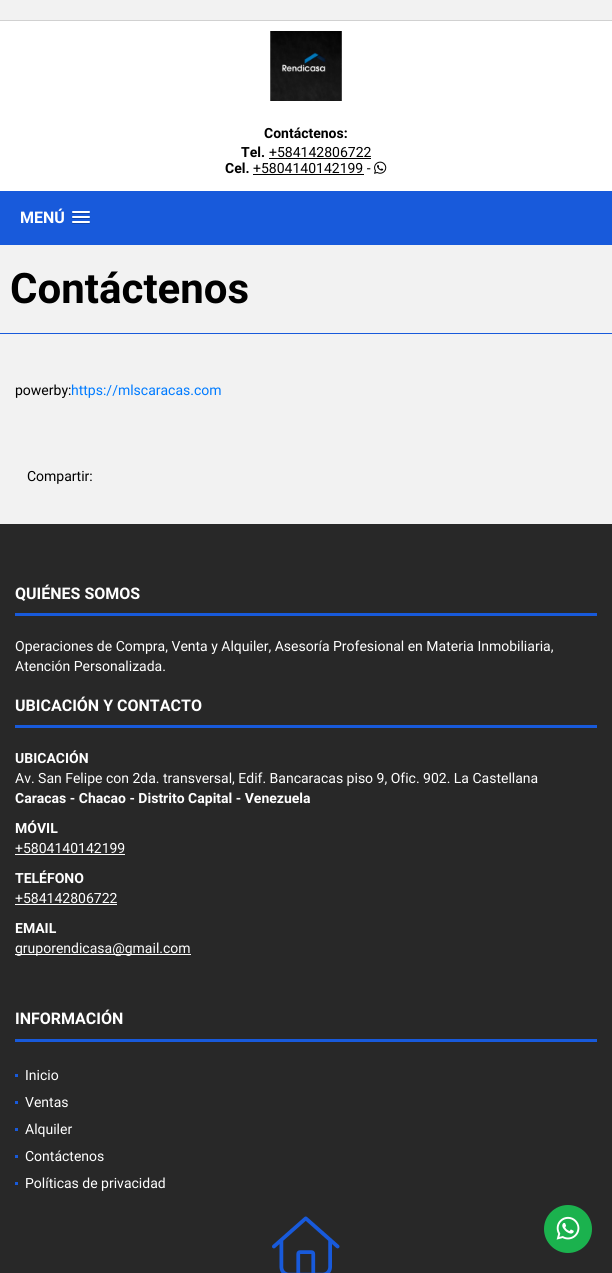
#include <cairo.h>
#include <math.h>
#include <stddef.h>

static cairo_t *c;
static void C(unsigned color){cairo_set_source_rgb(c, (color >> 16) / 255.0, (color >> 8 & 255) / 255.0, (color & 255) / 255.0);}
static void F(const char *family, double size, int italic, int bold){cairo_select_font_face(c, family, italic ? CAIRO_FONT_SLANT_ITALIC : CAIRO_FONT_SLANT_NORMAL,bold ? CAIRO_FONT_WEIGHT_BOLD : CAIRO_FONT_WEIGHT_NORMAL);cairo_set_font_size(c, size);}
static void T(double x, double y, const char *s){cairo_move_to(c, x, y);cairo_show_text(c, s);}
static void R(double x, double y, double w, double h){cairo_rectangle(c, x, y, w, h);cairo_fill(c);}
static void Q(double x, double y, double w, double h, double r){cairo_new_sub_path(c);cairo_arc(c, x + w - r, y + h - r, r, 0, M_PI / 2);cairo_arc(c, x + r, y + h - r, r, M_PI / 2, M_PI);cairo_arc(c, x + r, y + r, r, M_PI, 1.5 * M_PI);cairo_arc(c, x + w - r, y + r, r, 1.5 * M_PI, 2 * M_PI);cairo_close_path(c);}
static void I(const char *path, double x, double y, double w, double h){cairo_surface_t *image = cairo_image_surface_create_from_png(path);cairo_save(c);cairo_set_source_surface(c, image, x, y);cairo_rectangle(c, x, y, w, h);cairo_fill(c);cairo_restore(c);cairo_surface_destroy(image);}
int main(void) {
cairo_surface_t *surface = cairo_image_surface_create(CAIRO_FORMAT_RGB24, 612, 1273);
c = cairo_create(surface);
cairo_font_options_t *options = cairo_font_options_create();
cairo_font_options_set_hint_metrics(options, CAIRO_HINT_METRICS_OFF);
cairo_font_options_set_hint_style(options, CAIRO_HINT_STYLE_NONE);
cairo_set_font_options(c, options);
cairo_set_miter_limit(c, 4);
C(0xf2f2f2);
cairo_paint(c);
C(0xd1d1d1);
R(0,20,612,1);
C(0xffffff);
R(0,21,612,170);
I("1.png",270,31,72,70);
F("Roboto",14,0,1);
C(0x000000);
T(264,138,"Contáctenos:");
T(241,157,"Tel.");
F("Roboto",14,0,0);
T(269,157,"+584142806722");
R(269,158,102,1);
F("Roboto",14,0,1);
T(225,173,"Cel.");
F("Roboto",14,0,0);
T(253,173,"+5804140142199 -");
R(253,174,111,1);
I("2.png",374,161,13,13);
C(0x185adb);
R(0,191,612,54);
F("Roboto",16,0,1);
C(0xffffff);
T(20,223,"MENÚ");
C(0x1244a4);
cairo_new_path(c);
cairo_move_to(c,72,212.5);
cairo_curve_to(c,71,214.5,75.5,214,75.5,214);
cairo_line_to(c,86.5,214);
cairo_curve_to(c,86.5,214,91,214.5,90,212.5);
cairo_curve_to(c,89,213.5,82.5,213,81,213);
cairo_curve_to(c,79.5,213,73,213.5,72,212.5);
cairo_close_path(c);
cairo_fill(c);
C(0xffffff);
Q(72,211,18,2,1);
cairo_fill(c);
C(0x1244a4);
cairo_new_path(c);
cairo_move_to(c,72,217.5);
cairo_curve_to(c,71,219.5,75.5,219,75.5,219);
cairo_line_to(c,86.5,219);
cairo_curve_to(c,86.5,219,91,219.5,90,217.5);
cairo_curve_to(c,89,218.5,82.5,218,81,218);
cairo_curve_to(c,79.5,218,73,218.5,72,217.5);
cairo_close_path(c);
cairo_fill(c);
C(0xffffff);
Q(72,216,18,2,1);
cairo_fill(c);
C(0x1244a4);
cairo_new_path(c);
cairo_move_to(c,72,222.5);
cairo_curve_to(c,71,224.5,75.5,224,75.5,224);
cairo_line_to(c,86.5,224);
cairo_curve_to(c,86.5,224,91,224.5,90,222.5);
cairo_curve_to(c,89,223.5,82.5,223,81,223);
cairo_curve_to(c,79.5,223,73,223.5,72,222.5);
cairo_close_path(c);
cairo_fill(c);
C(0xffffff);
Q(72,221,18,2,1);
cairo_fill(c);
C(0x185adb);
R(0,333,612,1);
F("Roboto",42,0,1);
C(0x000000);
T(10,303,"Contáctenos");
F("Roboto",14,0,0);
T(15,395,"powerby:");
C(0x007bff);
T(71,395,"https://mlscaracas.com");
C(0x000000);
T(27,481,"Compartir:");
C(0x282828);
R(0,524,612,749);
C(0x185adb);
R(15,613,582,3);
F("Roboto",16,0,1);
C(0xffffff);
T(15,599,"QUIÉNES SOMOS");
F("Roboto",14,0,0);
T(15,651,"Operaciones de Compra, Venta y Alquiler, Asesoría Profesional en Materia Inmobiliaria,");
T(15,671,"Atención Personalizada.");
C(0x185adb);
R(15,725,582,3);
F("Roboto",16,0,1);
C(0xffffff);
T(15,711,"UBICACIÓN Y CONTACTO");
F("Roboto",14,0,1);
T(15,763,"UBICACIÓN");
F("Roboto",14,0,0);
T(15,783,"Av. San Felipe con 2da. transversal, Edif. Bancaracas piso 9, Ofic. 902. La Castellana");
F("Roboto",14,0,1);
T(15,803,"Caracas - Chacao - Distrito Capital - Venezuela");
T(15,833,"MÓVIL");
F("Roboto",14,0,0);
T(15,853,"+5804140142199");
R(15,854,110,1);
F("Roboto",14,0,1);
T(15,883,"TELÉFONO");
F("Roboto",14,0,0);
T(15,903,"+584142806722");
R(15,904,102,1);
F("Roboto",14,0,1);
T(15,933,"EMAIL");
R(15,954,176,1);
F("Roboto",14,0,0);
T(15,953,"gruporendicasa@gmail.com");
C(0x185adb);
R(15,1039,582,3);
F("Roboto",16,0,1);
C(0xffffff);
T(15,1024,"INFORMACIÓN");
C(0x185adb);
R(15,1074,3,3);
F("Roboto",14,0,0);
C(0xffffff);
T(25,1080,"Inicio");
C(0x185adb);
R(15,1101,3,3);
C(0xffffff);
T(25,1107,"Ventas");
C(0x185adb);
R(15,1128,3,3);
C(0xffffff);
T(25,1134,"Alquiler");
C(0x185adb);
R(15,1155,3,3);
C(0xffffff);
T(25,1161,"Contáctenos");
C(0x185adb);
R(15,1182,3,3);
C(0xffffff);
T(25,1188,"Políticas de privacidad");
I("3.png",272,1216,68,57);
C(0x1bb24e);
cairo_arc(c,568,1229,24,0,2 * M_PI);
cairo_fill(c);
I("4.png",556,1216,24,24);
cairo_surface_write_to_png(surface, "o.png");
cairo_font_options_destroy(options);
cairo_destroy(c);
cairo_surface_destroy(surface);
return 0;
}
